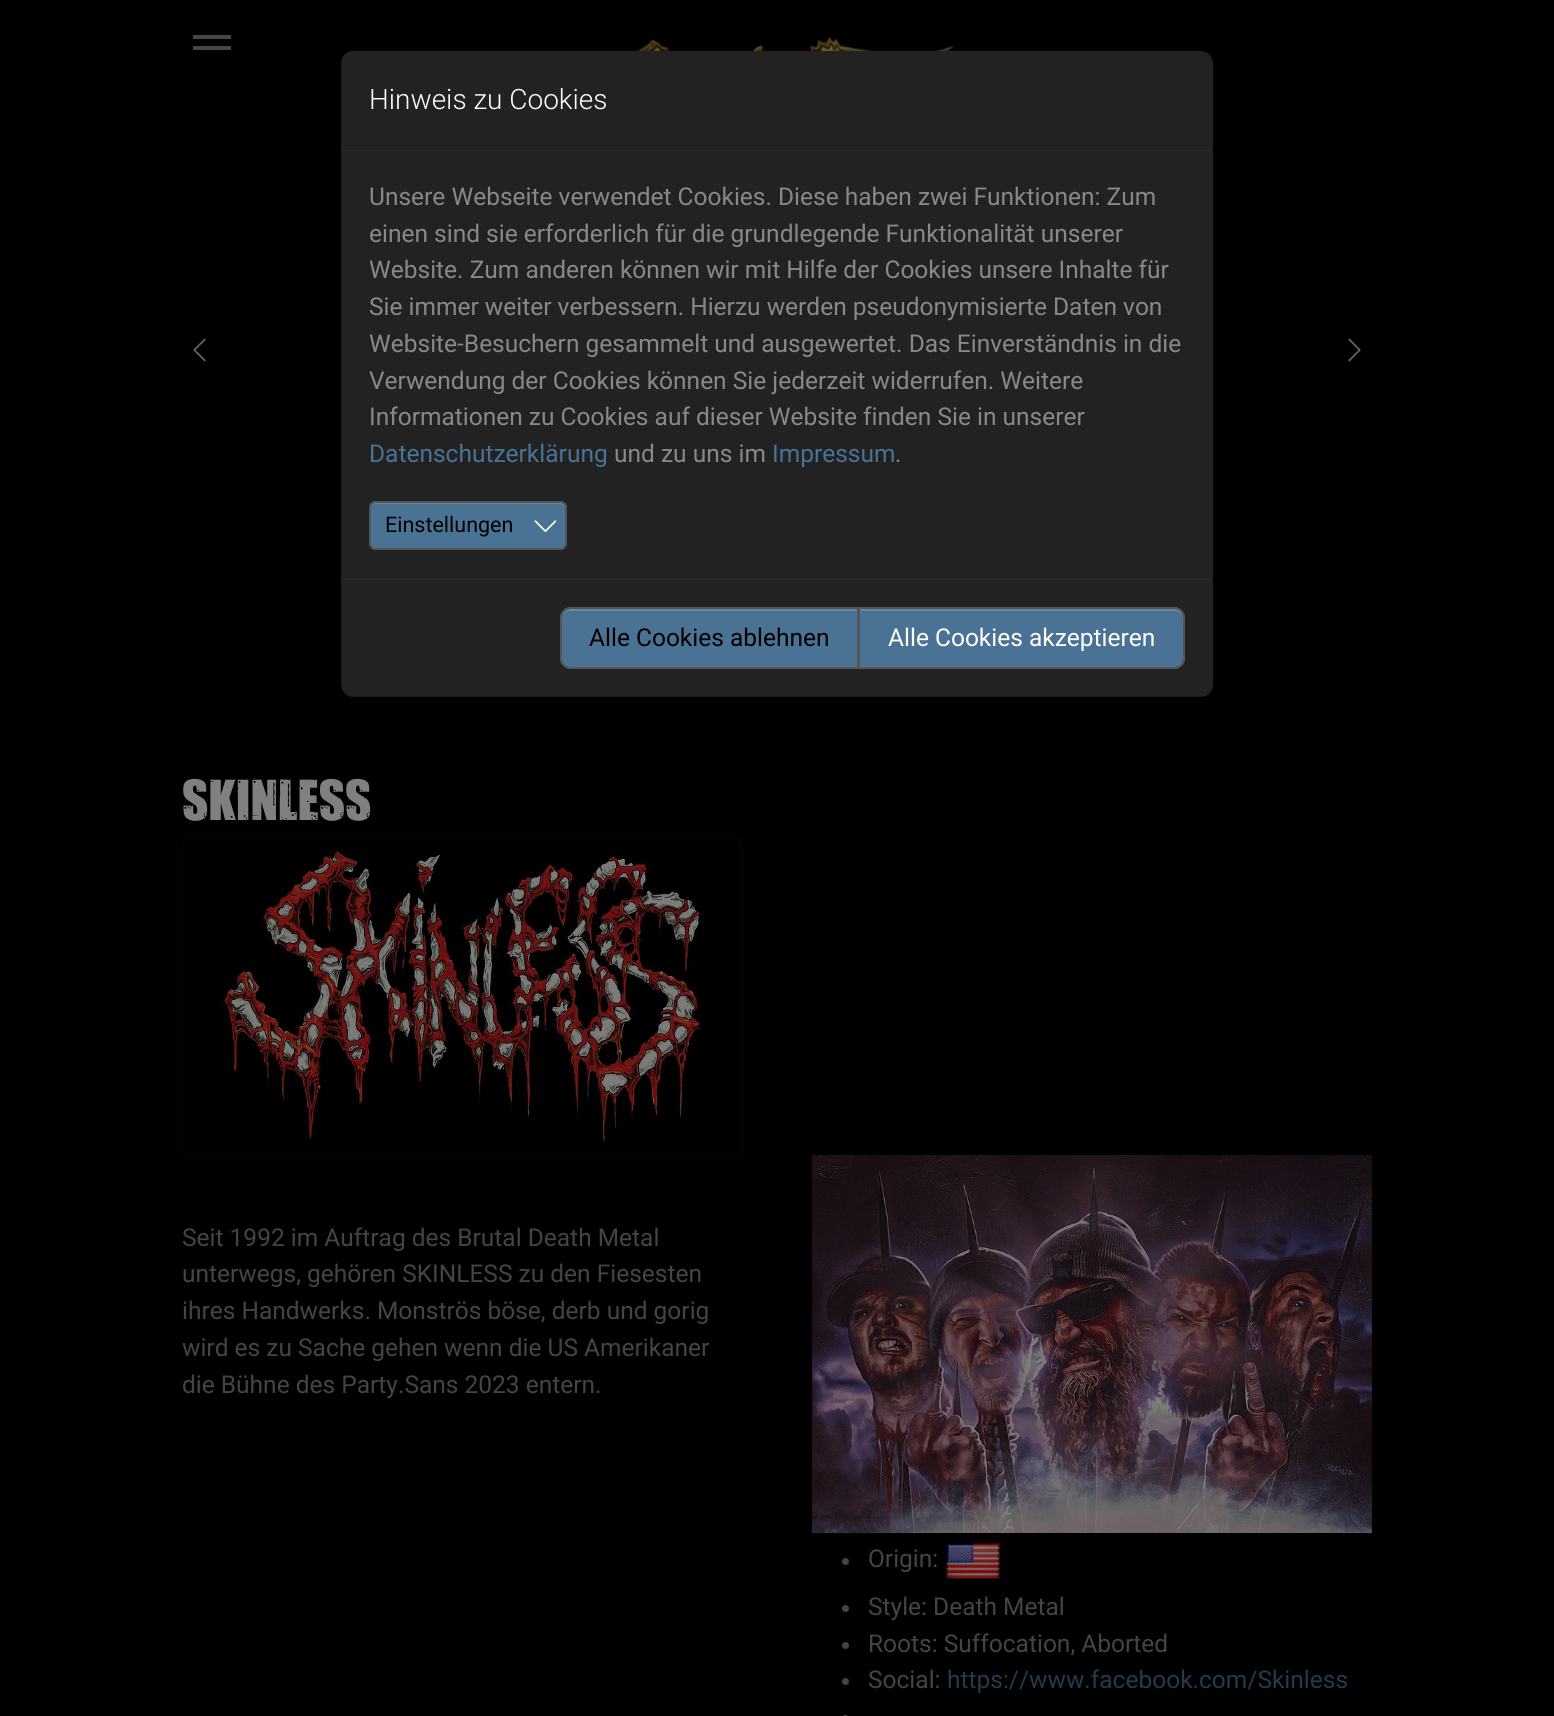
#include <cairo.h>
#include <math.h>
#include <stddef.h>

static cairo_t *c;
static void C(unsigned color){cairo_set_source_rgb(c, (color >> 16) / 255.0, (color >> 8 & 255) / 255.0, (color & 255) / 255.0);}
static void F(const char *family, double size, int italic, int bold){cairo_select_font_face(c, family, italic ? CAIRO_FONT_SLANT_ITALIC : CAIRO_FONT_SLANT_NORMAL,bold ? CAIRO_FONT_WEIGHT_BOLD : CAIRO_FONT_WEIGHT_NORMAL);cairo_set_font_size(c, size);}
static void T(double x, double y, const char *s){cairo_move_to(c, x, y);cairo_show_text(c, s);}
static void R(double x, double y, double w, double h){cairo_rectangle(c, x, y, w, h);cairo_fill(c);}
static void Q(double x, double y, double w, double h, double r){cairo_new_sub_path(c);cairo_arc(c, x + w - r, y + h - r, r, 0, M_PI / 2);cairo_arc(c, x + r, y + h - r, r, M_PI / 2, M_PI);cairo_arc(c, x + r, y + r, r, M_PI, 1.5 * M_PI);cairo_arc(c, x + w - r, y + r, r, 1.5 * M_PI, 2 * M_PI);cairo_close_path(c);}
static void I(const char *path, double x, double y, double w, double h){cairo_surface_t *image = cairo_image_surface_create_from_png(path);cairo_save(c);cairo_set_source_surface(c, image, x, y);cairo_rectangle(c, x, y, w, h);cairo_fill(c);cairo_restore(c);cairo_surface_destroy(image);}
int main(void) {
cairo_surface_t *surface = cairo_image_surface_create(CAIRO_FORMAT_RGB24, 1554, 1716);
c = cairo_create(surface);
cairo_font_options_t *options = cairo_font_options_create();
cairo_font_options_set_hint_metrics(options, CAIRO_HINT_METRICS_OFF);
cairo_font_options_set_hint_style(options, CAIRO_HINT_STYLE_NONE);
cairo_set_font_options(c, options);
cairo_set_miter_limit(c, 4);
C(0x000000);
cairo_paint(c);
C(0x222222);
Q(341,51,872,646,12);
cairo_fill(c);
I("2.png",637,36,317,15);
Q(341,50,873,647,13);
cairo_set_source_rgba(c,0,0,0,0.18);
cairo_stroke(c);
C(0x282828);
R(341,149,872,2);
F("Roboto Light",28,0,0);
C(0xffffff);
T(369,109,"Hinweis zu Cookies");
F("Roboto",24.5,0,0);
C(0x888888);
T(369,205,"Unsere Webseite verwendet Cookies. Diese haben zwei Funktionen: Zum");
T(369,242,"einen sind sie erforderlich für die grundlegende Funktionalität unserer");
T(369,278,"Website. Zum anderen können wir mit Hilfe der Cookies unsere Inhalte für");
T(369,315,"Sie immer weiter verbessern. Hierzu werden pseudonymisierte Daten von");
T(369,352,"Website-Besuchern gesammelt und ausgewertet. Das Einverständnis in die");
T(369,389,"Verwendung der Cookies können Sie jederzeit widerrufen. Weitere");
T(369,425,"Informationen zu Cookies auf dieser Website finden Sie in unserer");
C(0x4a7295);
T(369,462,"Datenschutzerklärung");
C(0x888888);
T(614,462,"und zu uns im");
C(0x4a7295);
T(772,462,"Impressum");
C(0x888888);
T(895,462,".");
C(0x4a7295);
Q(369,501,198,49,7);
cairo_fill(c);
C(0x6587a5);
cairo_new_path(c);
cairo_move_to(c,376,504);
cairo_line_to(c,560,504);
cairo_curve_to(c,563,504,565,506,565,509);
cairo_line_to(c,565,507);
cairo_curve_to(c,565,504,563,502,560,502);
cairo_line_to(c,376,502);
cairo_curve_to(c,373,502,371,504,371,507);
cairo_line_to(c,371,509);
cairo_curve_to(c,371,506,373,504,376,504);
cairo_close_path(c);
cairo_fill(c);
Q(370,502,196,47,6);
C(0x555555);
cairo_stroke(c);
F("Roboto",21.5,0,0);
C(0x000000);
T(385,532,"Einstellungen");
I("1.png",534,520,23,12);
C(0x282828);
R(341,578,872,2);
C(0x4a7295);
cairo_new_path(c);
cairo_move_to(c,571,607);
cairo_line_to(c,859,607);
cairo_line_to(c,859,669);
cairo_line_to(c,571,669);
cairo_curve_to(c,565,669,560,664,560,658);
cairo_line_to(c,560,618);
cairo_curve_to(c,560,612,565,607,571,607);
cairo_close_path(c);
cairo_fill(c);
C(0x6587a5);
cairo_new_path(c);
cairo_move_to(c,570,611);
cairo_line_to(c,858,611);
cairo_line_to(c,858,609);
cairo_line_to(c,571,609);
cairo_curve_to(c,566,609,562,613,562,618);
cairo_line_to(c,562,620);
cairo_curve_to(c,562,615,566,611,570,611);
cairo_close_path(c);
cairo_fill(c);
cairo_new_path(c);
cairo_move_to(c,571,608);
cairo_line_to(c,858,608);
cairo_line_to(c,858,668);
cairo_line_to(c,571,668);
cairo_curve_to(c,565.5,668,561,663.5,561,658);
cairo_line_to(c,561,618);
cairo_curve_to(c,561,612.5,565.5,608,571,608);
cairo_close_path(c);
C(0x555555);
cairo_stroke(c);
F("Roboto",24.5,0,0);
C(0x000000);
T(589,646,"Alle Cookies ablehnen");
C(0x4a7295);
cairo_new_path(c);
cairo_move_to(c,858,607);
cairo_line_to(c,1174,607);
cairo_curve_to(c,1180,607,1185,612,1185,618);
cairo_line_to(c,1185,658);
cairo_curve_to(c,1185,664,1180,669,1174,669);
cairo_line_to(c,858,669);
cairo_close_path(c);
cairo_fill(c);
C(0x6587a5);
cairo_new_path(c);
cairo_move_to(c,859,611);
cairo_line_to(c,1174,611);
cairo_curve_to(c,1179,611,1183,615,1183,620);
cairo_curve_to(c,1183,614,1180,609,1174,609);
cairo_line_to(c,859,609);
cairo_close_path(c);
cairo_fill(c);
cairo_new_path(c);
cairo_move_to(c,859,608);
cairo_line_to(c,1174,608);
cairo_curve_to(c,1179.5,608,1184,612.5,1184,618);
cairo_line_to(c,1184,658);
cairo_curve_to(c,1184,663.5,1179.5,668,1174,668);
cairo_line_to(c,859,668);
cairo_close_path(c);
C(0x555555);
cairo_stroke(c);
C(0xffffff);
T(888,646,"Alle Cookies akzeptieren");
C(0x464646);
R(193,46,38,4);
R(193,35,38,4);
I("3.png",193,338,13,24);
I("4.png",1348,338,13,24);
F("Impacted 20",51,0,0);
C(0x808080);
T(182,820,"SKINLESS");
I("5.png",182,838,560,317);
F("Roboto",24.5,0,0);
C(0x444444);
T(182,1246,"Seit 1992 im Auftrag des Brutal Death Metal");
T(182,1282,"unterwegs, gehören SKINLESS zu den Fiesesten");
T(182,1319,"ihres Handwerks. Monströs böse, derb und gorig");
T(182,1356,"wird es zu Sache gehen wenn die US Amerikaner");
T(182,1393,"die Bühne des Party.Sans 2023 entern.");
I("6.png",812,1155,560,378);
cairo_arc(c,845.5,1561.5,3.5,0,2 * M_PI);
cairo_fill(c);
T(868,1567,"Origin:");
I("7.png",946,1543,54,36);
cairo_arc(c,845.5,1608.5,3.5,0,2 * M_PI);
cairo_fill(c);
T(868,1615,"Style: Death Metal");
cairo_new_path(c);
cairo_arc(c,845.5,1645.5,3.5,0,2 * M_PI);
cairo_fill(c);
T(868,1652,"Roots: Suffocation, Aborted");
cairo_new_path(c);
cairo_arc(c,845.5,1681.5,3.5,0,2 * M_PI);
cairo_fill(c);
T(868,1688,"Social:");
C(0x25394b);
T(947,1688,"https://www.facebook.com/Skinless");
C(0x444444);
Q(842,1715,7,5,3.5);
cairo_fill(c);
cairo_surface_write_to_png(surface, "o.png");
cairo_font_options_destroy(options);
cairo_destroy(c);
cairo_surface_destroy(surface);
return 0;
}
